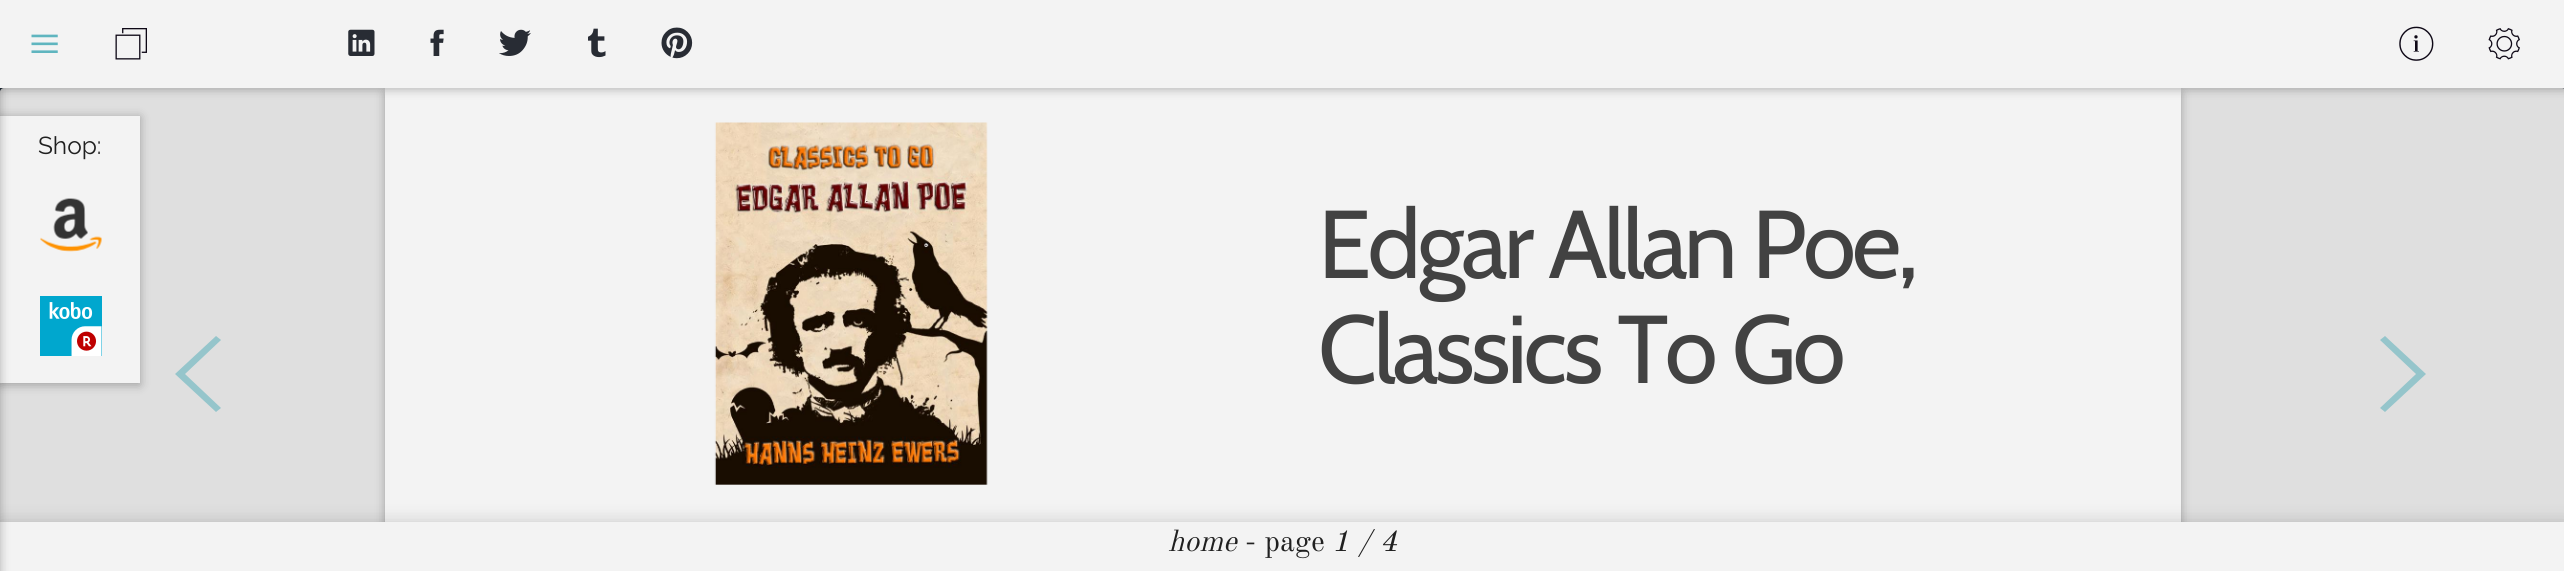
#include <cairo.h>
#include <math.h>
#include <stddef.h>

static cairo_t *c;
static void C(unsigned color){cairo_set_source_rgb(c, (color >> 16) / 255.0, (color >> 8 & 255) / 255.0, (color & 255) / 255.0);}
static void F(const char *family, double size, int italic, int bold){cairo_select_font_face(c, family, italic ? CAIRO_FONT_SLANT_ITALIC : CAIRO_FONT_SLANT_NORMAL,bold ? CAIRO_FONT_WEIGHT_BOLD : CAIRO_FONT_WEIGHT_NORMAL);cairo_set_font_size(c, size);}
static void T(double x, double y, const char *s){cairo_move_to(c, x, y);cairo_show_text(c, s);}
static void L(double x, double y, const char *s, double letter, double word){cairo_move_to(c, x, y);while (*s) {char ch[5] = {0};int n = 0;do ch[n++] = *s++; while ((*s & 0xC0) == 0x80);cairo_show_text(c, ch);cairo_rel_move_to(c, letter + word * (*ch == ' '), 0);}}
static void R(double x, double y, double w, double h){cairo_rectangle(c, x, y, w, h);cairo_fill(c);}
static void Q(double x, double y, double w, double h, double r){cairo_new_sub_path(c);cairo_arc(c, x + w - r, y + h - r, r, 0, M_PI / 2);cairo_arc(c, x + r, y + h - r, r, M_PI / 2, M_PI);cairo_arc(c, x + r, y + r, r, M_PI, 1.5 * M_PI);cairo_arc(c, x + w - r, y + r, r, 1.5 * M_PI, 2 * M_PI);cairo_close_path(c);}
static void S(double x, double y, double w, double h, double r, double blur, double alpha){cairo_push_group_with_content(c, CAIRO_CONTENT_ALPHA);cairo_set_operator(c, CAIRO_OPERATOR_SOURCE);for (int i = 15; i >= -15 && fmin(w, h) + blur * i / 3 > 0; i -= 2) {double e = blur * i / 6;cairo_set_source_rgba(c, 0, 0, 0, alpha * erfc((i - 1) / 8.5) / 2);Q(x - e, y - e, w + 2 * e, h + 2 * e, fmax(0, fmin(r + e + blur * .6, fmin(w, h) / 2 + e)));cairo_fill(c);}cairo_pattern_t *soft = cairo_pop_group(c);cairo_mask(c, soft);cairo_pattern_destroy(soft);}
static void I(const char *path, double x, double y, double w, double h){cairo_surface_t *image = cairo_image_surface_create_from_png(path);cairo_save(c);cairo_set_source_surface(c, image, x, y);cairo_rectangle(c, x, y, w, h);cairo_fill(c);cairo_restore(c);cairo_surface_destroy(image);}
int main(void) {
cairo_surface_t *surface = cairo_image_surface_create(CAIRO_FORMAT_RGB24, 2564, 571);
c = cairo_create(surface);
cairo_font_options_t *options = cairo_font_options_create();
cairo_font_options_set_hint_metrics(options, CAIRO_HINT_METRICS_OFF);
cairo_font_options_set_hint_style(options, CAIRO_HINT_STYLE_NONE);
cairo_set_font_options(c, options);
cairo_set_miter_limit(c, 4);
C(0x233140);
cairo_paint(c);
C(0x000000);
S(0,89,1283,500,4,4.5,.2);
C(0xf5f5f5);
Q(0,88,1283,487,4);
cairo_fill(c);
cairo_set_source_rgba(c,0,0,0,0.09);
Q(0,88,1283,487,4);
cairo_fill(c);
C(0x000000);
S(0,117,140,268,0,5,.2);
S(0,117,140,268,0,5,.1);
C(0xf3f3f3);
R(0,116,140,267);
C(0xf5f5f5);
Q(1283,88,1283,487,4);
cairo_fill(c);
cairo_set_source_rgba(c,0,0,0,0.09);
R(2181,88,383,434);
C(0x000000);
S(385,93,1796,436,0,5,.2);
S(385,93,1796,436,0,5,.1);
C(0xf3f3f3);
R(385,88,1796,434);
C(0x000000);
S(0,523,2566,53,0,9,.2);
C(0xf3f3f3);
R(0,522,2564,49);
C(0x000000);
S(-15,5,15,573,0,5,.2);
S(-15,5,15,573,0,5,.1);
S(0,2,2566,87,0,5,.2);
S(0,2,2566,87,0,5,.1);
C(0xf3f3f3);
R(0,0,2564,88);
I("1.png",31,34,27,19);
cairo_set_source_rgba(c,0.953,0.953,0.953,0.12);
R(31,34,27,19);
I("2.png",115,28,32,32);
I("3.png",348,29,27,27);
I("4.png",430,29,14,27);
I("5.png",499,29,32,27);
I("6.png",588,28,18,30);
I("7.png",661,27,32,32);
I("8.png",2399,26,35,35);
I("9.png",2488,28,32,32);
F("Raleway",24.5,0,0);
C(0x202020);
T(38,154,"Shop:");
I("10.png",40,198,62,54);
I("11.png",40,296,62,60);
C(0x95c5cb);
cairo_new_path(c);
cairo_move_to(c,221,340);
cairo_line_to(c,185,374);
cairo_line_to(c,221,408);
cairo_line_to(c,216,412);
cairo_line_to(c,175,374);
cairo_line_to(c,216,336);
cairo_close_path(c);
cairo_fill(c);
cairo_new_path(c);
cairo_move_to(c,2380,340);
cairo_line_to(c,2385,336);
cairo_line_to(c,2426,374);
cairo_line_to(c,2385,412);
cairo_line_to(c,2380,408);
cairo_line_to(c,2416,374);
cairo_close_path(c);
cairo_fill(c);
I("12.png",714,122,274,363);
F("Cabin",96.25,0,0);
C(0x424242);
L(1318,278,"Edgar Allan Poe,",-3.8,0);
L(1318,383,"Classics To Go",-3.8,0);
F("Old Standard TT",30,1,0);
C(0x202020);
T(1168,551,"home");
F("Old Standard TT",30,0,0);
T(1245,551,"- page");
F("Old Standard TT",30,1,0);
T(1332,551,"1 / 4");
cairo_surface_write_to_png(surface, "o.png");
cairo_font_options_destroy(options);
cairo_destroy(c);
cairo_surface_destroy(surface);
return 0;
}
